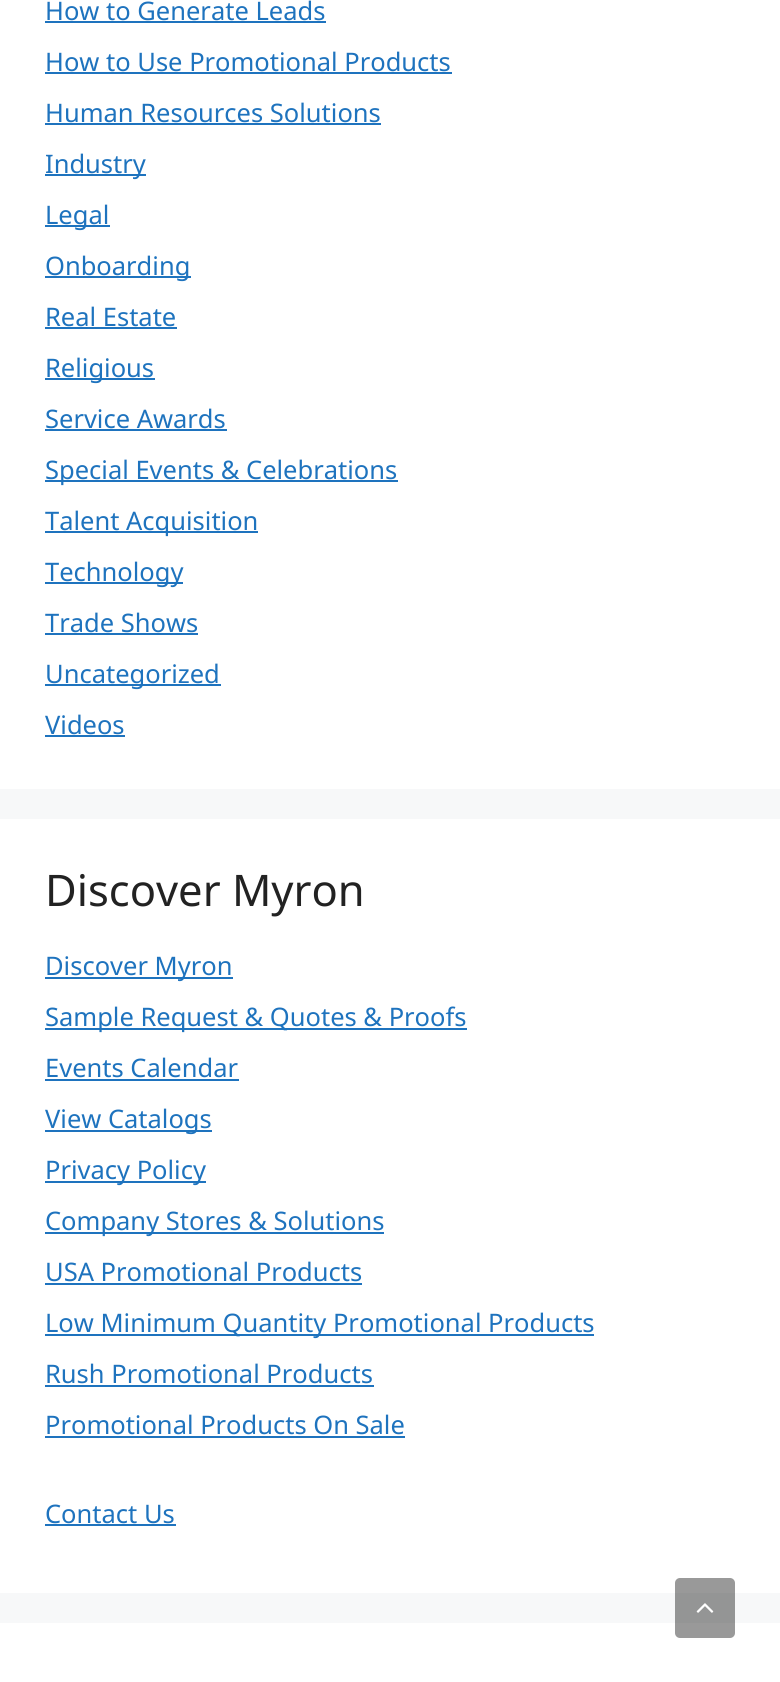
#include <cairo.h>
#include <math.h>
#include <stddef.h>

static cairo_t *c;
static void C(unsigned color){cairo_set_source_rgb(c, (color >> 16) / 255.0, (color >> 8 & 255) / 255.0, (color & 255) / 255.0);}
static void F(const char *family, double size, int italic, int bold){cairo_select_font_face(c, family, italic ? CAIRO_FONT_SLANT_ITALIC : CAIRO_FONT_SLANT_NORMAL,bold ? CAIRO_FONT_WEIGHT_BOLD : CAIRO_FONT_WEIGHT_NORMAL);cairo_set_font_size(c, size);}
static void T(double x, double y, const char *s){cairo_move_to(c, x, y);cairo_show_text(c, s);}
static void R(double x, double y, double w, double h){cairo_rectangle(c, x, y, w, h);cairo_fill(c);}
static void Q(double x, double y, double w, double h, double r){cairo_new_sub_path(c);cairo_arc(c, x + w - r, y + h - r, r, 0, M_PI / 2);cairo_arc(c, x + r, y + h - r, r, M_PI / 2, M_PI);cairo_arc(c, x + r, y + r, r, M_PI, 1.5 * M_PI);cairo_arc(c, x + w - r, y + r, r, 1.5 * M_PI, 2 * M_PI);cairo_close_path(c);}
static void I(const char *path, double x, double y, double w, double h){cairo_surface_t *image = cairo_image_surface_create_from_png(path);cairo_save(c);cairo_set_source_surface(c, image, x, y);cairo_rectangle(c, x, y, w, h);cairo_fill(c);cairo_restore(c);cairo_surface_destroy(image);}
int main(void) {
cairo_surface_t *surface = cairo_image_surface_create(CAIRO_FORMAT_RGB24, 780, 1682);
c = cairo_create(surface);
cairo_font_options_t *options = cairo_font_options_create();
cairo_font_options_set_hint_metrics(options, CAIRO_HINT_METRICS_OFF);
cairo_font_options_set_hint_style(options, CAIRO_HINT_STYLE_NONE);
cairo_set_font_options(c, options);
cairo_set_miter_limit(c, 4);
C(0xf7f8f9);
cairo_paint(c);
C(0xffffff);
R(0,0,780,789);
F("Noto Sans",25.5,0,0);
C(0x1e73be);
T(45,20,"How to Generate Leads");
R(45,21,281,2);
T(45,71,"How to Use Promotional Products");
R(45,72,407,2);
T(45,122,"Human Resources Solutions");
R(45,123,336,2);
R(45,174,101,2);
T(45,173,"Industry");
R(45,225,65,2);
T(45,224,"Legal");
R(45,276,146,2);
T(45,275,"Onboarding");
T(45,326,"Real Estate");
R(45,327,132,2);
R(45,378,110,2);
T(45,377,"Religious");
T(45,428,"Service Awards");
R(45,429,182,2);
R(45,480,353,2);
T(45,479,"Special Events & Celebrations");
R(45,531,213,2);
T(45,530,"Talent Acquisition");
R(45,582,138,2);
T(45,581,"Technology");
T(45,632,"Trade Shows");
R(45,633,153,2);
R(45,684,176,2);
T(45,683,"Uncategorized");
T(45,734,"Videos");
R(45,735,80,2);
C(0xffffff);
R(0,819,780,774);
F("Noto Sans",43.5,0,0);
C(0x222222);
T(45,906,"Discover Myron");
C(0x1e73be);
R(45,977,188,2);
F("Noto Sans",25.5,0,0);
T(45,975,"Discover Myron");
R(45,1028,422,2);
T(45,1026,"Sample Request & Quotes & Proofs");
T(45,1077,"Events Calendar");
R(45,1079,194,2);
R(45,1130,167,2);
T(45,1128,"View Catalogs");
R(45,1181,161,2);
T(45,1179,"Privacy Policy");
R(45,1232,339,2);
T(45,1230,"Company Stores & Solutions");
T(45,1281,"USA Promotional Products");
R(45,1283,317,2);
R(45,1334,549,2);
T(45,1332,"Low Minimum Quantity Promotional Products");
T(45,1383,"Rush Promotional Products");
R(45,1385,329,2);
T(45,1434,"Promotional Products On Sale");
R(45,1436,360,2);
T(45,1523,"Contact Us");
R(45,1524,131,2);
C(0xffffff);
R(0,1623,780,59);
cairo_set_source_rgba(c,0,0,0,0.4);
Q(675,1578,60,60,5);
cairo_fill(c);
I("1.png",696,1603,18,10);
cairo_surface_write_to_png(surface, "o.png");
cairo_font_options_destroy(options);
cairo_destroy(c);
cairo_surface_destroy(surface);
return 0;
}
